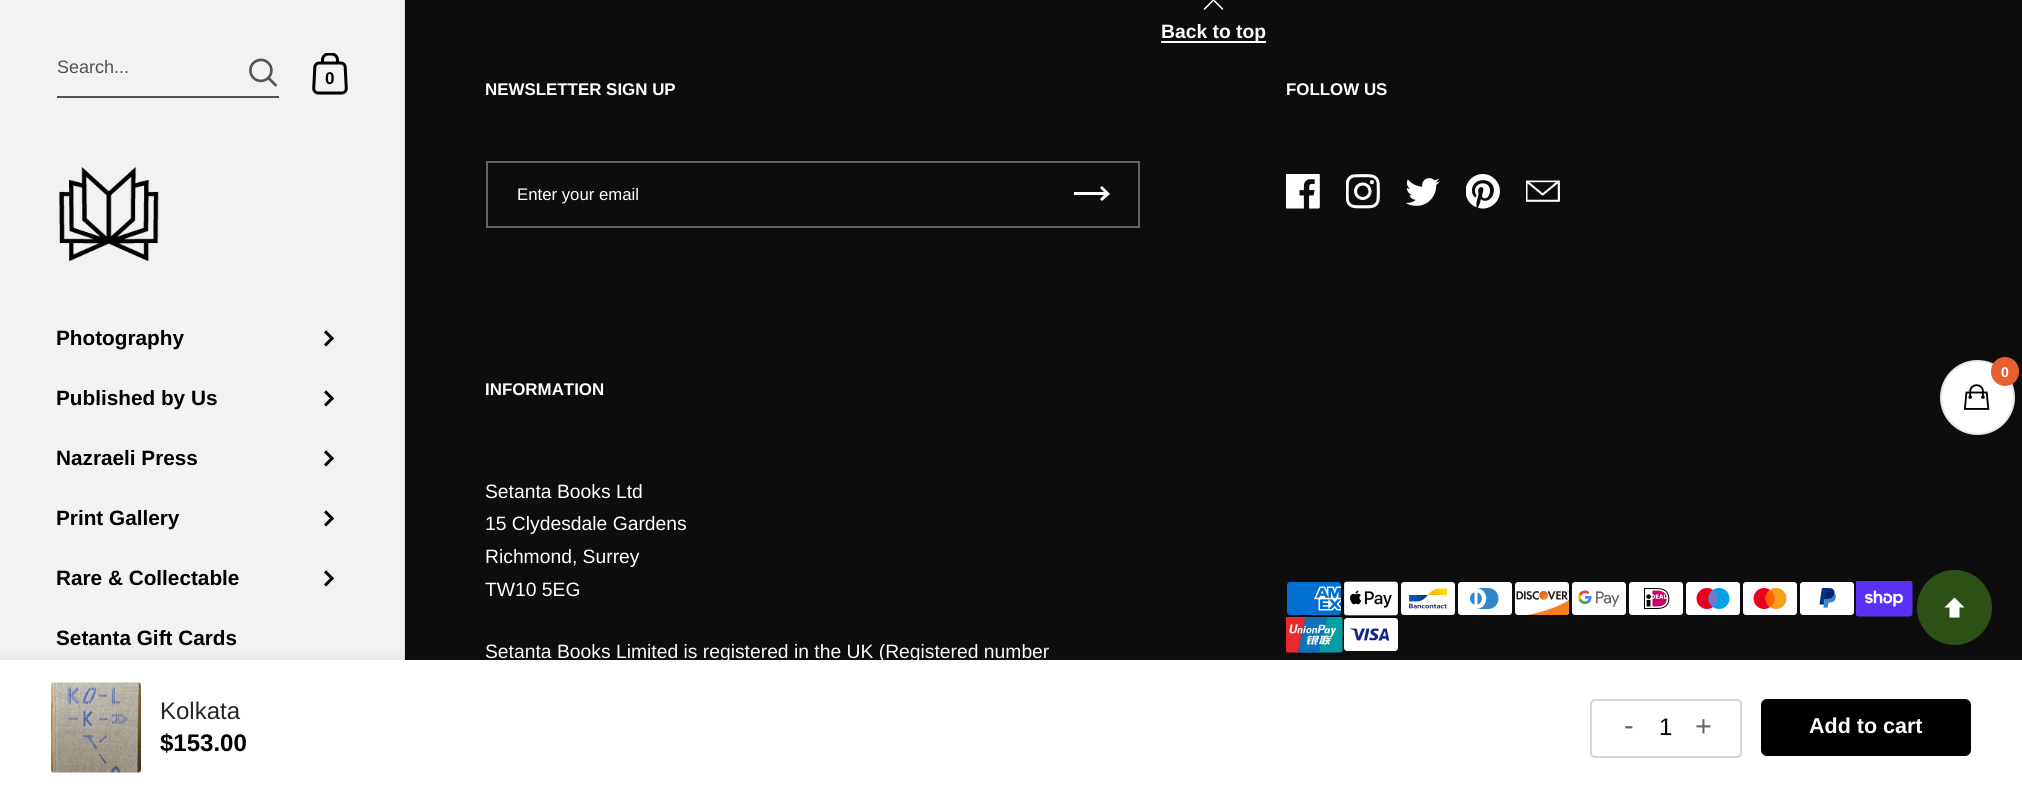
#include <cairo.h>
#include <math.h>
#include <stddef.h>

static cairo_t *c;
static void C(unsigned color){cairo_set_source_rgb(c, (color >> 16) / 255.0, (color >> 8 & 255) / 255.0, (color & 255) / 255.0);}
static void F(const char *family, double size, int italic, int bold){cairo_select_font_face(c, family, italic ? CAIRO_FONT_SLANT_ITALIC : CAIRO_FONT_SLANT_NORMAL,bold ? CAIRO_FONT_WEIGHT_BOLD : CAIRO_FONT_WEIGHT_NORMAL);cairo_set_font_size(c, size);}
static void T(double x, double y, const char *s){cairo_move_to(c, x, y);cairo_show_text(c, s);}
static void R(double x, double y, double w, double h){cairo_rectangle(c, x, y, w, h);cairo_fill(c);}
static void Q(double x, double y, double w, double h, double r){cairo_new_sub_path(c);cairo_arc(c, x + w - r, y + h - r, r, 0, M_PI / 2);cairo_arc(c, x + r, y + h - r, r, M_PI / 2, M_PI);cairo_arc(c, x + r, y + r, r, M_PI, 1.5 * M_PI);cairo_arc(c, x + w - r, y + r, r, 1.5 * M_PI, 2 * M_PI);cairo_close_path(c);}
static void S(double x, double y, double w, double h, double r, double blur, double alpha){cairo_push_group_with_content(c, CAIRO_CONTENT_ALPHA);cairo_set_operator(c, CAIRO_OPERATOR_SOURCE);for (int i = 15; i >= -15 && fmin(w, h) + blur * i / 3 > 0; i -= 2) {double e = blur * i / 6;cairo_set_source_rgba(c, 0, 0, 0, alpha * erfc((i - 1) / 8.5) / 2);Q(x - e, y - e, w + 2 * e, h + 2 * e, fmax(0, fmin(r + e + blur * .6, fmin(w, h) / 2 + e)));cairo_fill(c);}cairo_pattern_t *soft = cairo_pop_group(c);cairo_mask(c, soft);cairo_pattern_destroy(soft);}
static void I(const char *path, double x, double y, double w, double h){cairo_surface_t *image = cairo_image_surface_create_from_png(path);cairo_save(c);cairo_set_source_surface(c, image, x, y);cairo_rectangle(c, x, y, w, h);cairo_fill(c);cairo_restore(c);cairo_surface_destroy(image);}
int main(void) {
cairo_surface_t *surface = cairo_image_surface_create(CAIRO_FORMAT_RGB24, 2022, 794);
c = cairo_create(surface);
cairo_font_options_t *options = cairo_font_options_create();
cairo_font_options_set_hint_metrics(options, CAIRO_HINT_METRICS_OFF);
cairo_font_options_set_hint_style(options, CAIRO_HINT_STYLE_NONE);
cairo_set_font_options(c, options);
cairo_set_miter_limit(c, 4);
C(0x0d0d0d);
cairo_paint(c);
C(0xf2f2f2);
R(0,0,404,660);
C(0xdfdfdf);
R(404,0,1,660);
C(0x525252);
R(57,96,222,2);
F("Liberation Sans",18,0,0);
T(57,73,"Search...");
I("1.png",249,58,29,29);
I("2.png",312,53,36,42);
F("Liberation Sans",17,0,1);
C(0x000000);
T(325,84,"0");
I("3.png",59,167,100,94);
F("Liberation Sans",20.75,0,1);
T(56,345,"Photography");
I("4.png",324,330,11,17);
T(56,405,"Published by Us");
I("4.png",324,390,11,17);
T(56,465,"Nazraeli Press");
I("4.png",324,450,11,17);
T(56,525,"Print Gallery");
I("4.png",324,510,11,17);
T(56,585,"Rare & Collectable");
I("4.png",324,570,11,17);
T(56,645,"Setanta Gift Cards");
I("5.png",1203,0,21,10);
C(0xffffff);
R(1161,41,105,2);
F("Liberation Sans",19.3,0,1);
T(1161,38,"Back to top");
F("Liberation Sans",16.9,0,1);
T(485,95,"NEWSLETTER SIGN UP");
cairo_rectangle(c,487,162,652,65);
C(0x646464);
cairo_stroke(c);
F("Liberation Sans",16.75,0,0);
C(0xffffff);
T(517,200,"Enter your email");
cairo_save(c);
cairo_rectangle(c,1074,186,36,17);
cairo_clip(c);
cairo_set_fill_rule(c,CAIRO_FILL_RULE_EVEN_ODD);
cairo_new_path(c);
cairo_move_to(c,1104,195);
cairo_line_to(c,1100,199);
cairo_line_to(c,1102,201);
cairo_line_to(c,1110,194);
cairo_line_to(c,1102,186);
cairo_line_to(c,1100,188);
cairo_line_to(c,1104,192);
cairo_line_to(c,1059,192);
cairo_line_to(c,1059,195);
cairo_close_path(c);
cairo_fill(c);
cairo_restore(c);
F("Liberation Sans",16.9,0,1);
T(1286,95,"FOLLOW US");
I("6.png",1286,174,34,35);
I("7.png",1346,174,34,35);
I("8.png",1406,178,34,28);
I("9.png",1466,174,34,35);
I("10.png",1526,180,34,22);
T(485,395,"INFORMATION");
F("Liberation Sans",19.3,0,0);
T(485,498,"Setanta Books Ltd");
T(485,530,"15 Clydesdale Gardens");
T(485,563,"Richmond, Surrey");
T(485,596,"TW10 5EG");
T(485,658,"Setanta Books Limited is registered in the UK (Registered number");
I("11.png",1287,582,54,33);
I("12.png",1343,581,56,36);
I("13.png",1401,582,54,33);
I("14.png",1458,582,54,33);
I("15.png",1515,582,55,33);
I("16.png",1572,582,54,33);
I("17.png",1629,582,54,33);
I("18.png",1686,582,54,33);
I("19.png",1743,582,54,33);
I("20.png",1800,582,54,33);
I("21.png",1856,581,57,36);
I("22.png",1286,617,57,36);
I("23.png",1344,618,54,33);
cairo_arc(c,1977.5,397.5,37.5,0,2 * M_PI);
cairo_fill(c);
cairo_arc(c,1977.5,397.5,36.5,0,2 * M_PI);
cairo_set_source_rgba(c,0,0,0,0.1);
cairo_stroke(c);
C(0xe75f33);
Q(1991,357,28,29,14);
cairo_fill(c);
F("Liberation Sans",14,0,1);
C(0xffffff);
T(2001,377,"0");
I("24.png",1963,384,27,26);
C(0x2d5016);
cairo_arc(c,1954.5,607.5,37.5,0,2 * M_PI);
cairo_fill(c);
C(0x000000);
S(0,660,2022,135,0,7.5,.09);
C(0xffffff);
R(0,660,2022,134);
I("25.png",51,682,90,91);
F("Liberation Sans",24,0,0);
C(0x262626);
T(160,719,"Kolkata");
F("Liberation Sans",24,0,1);
C(0x000000);
T(160,751,"$153.00");
Q(1591,700,150,57,4);
C(0xd5d5d5);
cairo_stroke(c);
F("Liberation Sans",29,0,0);
C(0x666666);
T(1624,735,"-");
F("Liberation Sans",24,0,0);
C(0x000000);
T(1659,735,"1");
F("Liberation Sans",29,0,0);
C(0x666666);
T(1695,736,"+");
C(0x000000);
Q(1761,699,210,57,6);
cairo_fill(c);
F("Liberation Sans",21.5,0,1);
C(0xffffff);
T(1809,733,"Add to cart");
cairo_new_path(c);
cairo_move_to(c,1954.5,597.5);
cairo_line_to(c,1944.5,607.5);
cairo_line_to(c,1949.5,607.5);
cairo_line_to(c,1949.5,617.5);
cairo_line_to(c,1959.5,617.5);
cairo_line_to(c,1959.5,607.5);
cairo_line_to(c,1964.5,607.5);
cairo_close_path(c);
cairo_fill(c);
cairo_surface_write_to_png(surface, "o.png");
cairo_font_options_destroy(options);
cairo_destroy(c);
cairo_surface_destroy(surface);
return 0;
}
